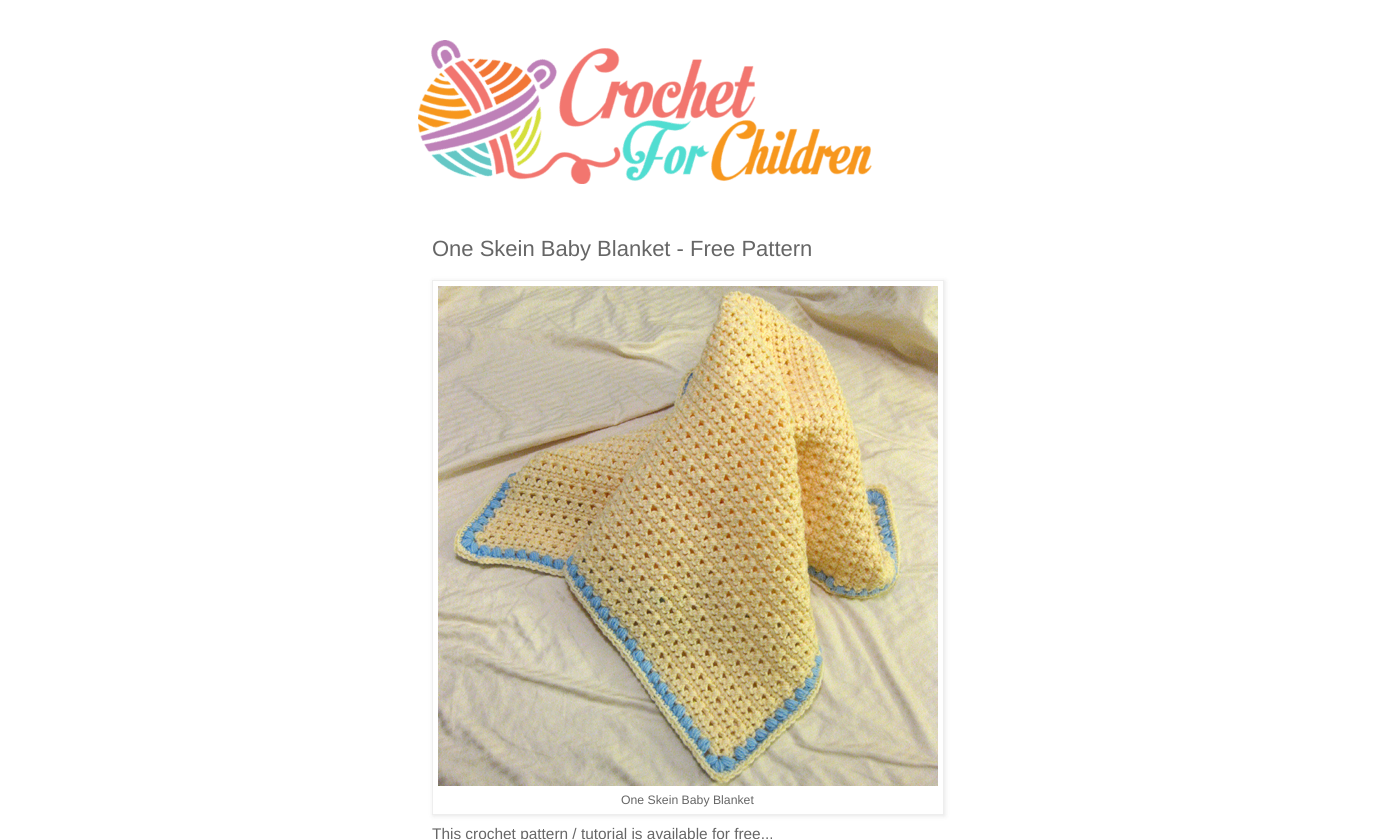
#include <cairo.h>
#include <math.h>
#include <stddef.h>

static cairo_t *c;
static void C(unsigned color){cairo_set_source_rgb(c, (color >> 16) / 255.0, (color >> 8 & 255) / 255.0, (color & 255) / 255.0);}
static void F(const char *family, double size, int italic, int bold){cairo_select_font_face(c, family, italic ? CAIRO_FONT_SLANT_ITALIC : CAIRO_FONT_SLANT_NORMAL,bold ? CAIRO_FONT_WEIGHT_BOLD : CAIRO_FONT_WEIGHT_NORMAL);cairo_set_font_size(c, size);}
static void T(double x, double y, const char *s){cairo_move_to(c, x, y);cairo_show_text(c, s);}
static void Q(double x, double y, double w, double h, double r){cairo_new_sub_path(c);cairo_arc(c, x + w - r, y + h - r, r, 0, M_PI / 2);cairo_arc(c, x + r, y + h - r, r, M_PI / 2, M_PI);cairo_arc(c, x + r, y + r, r, M_PI, 1.5 * M_PI);cairo_arc(c, x + w - r, y + r, r, 1.5 * M_PI, 2 * M_PI);cairo_close_path(c);}
static void S(double x, double y, double w, double h, double r, double blur, double alpha){cairo_push_group_with_content(c, CAIRO_CONTENT_ALPHA);cairo_set_operator(c, CAIRO_OPERATOR_SOURCE);for (int i = 15; i >= -15 && fmin(w, h) + blur * i / 3 > 0; i -= 2) {double e = blur * i / 6;cairo_set_source_rgba(c, 0, 0, 0, alpha * erfc((i - 1) / 8.5) / 2);Q(x - e, y - e, w + 2 * e, h + 2 * e, fmax(0, fmin(r + e + blur * .6, fmin(w, h) / 2 + e)));cairo_fill(c);}cairo_pattern_t *soft = cairo_pop_group(c);cairo_mask(c, soft);cairo_pattern_destroy(soft);}
static void I(const char *path, double x, double y, double w, double h){cairo_surface_t *image = cairo_image_surface_create_from_png(path);cairo_save(c);cairo_set_source_surface(c, image, x, y);cairo_rectangle(c, x, y, w, h);cairo_fill(c);cairo_restore(c);cairo_surface_destroy(image);}
int main(void) {
cairo_surface_t *surface = cairo_image_surface_create(CAIRO_FORMAT_RGB24, 1376, 839);
c = cairo_create(surface);
cairo_font_options_t *options = cairo_font_options_create();
cairo_font_options_set_hint_metrics(options, CAIRO_HINT_METRICS_OFF);
cairo_font_options_set_hint_style(options, CAIRO_HINT_STYLE_NONE);
cairo_set_font_options(c, options);
cairo_set_miter_limit(c, 4);
C(0xffffff);
cairo_paint(c);
I("1.png",418,40,454,144);
F("Liberation Sans",22,0,0);
C(0x666666);
T(432,256,"One Skein Baby Blanket - Free Pattern");
cairo_save(c);
cairo_set_fill_rule(c,CAIRO_FILL_RULE_EVEN_ODD);
cairo_new_path(c);
cairo_move_to(c,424,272);
cairo_line_to(c,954,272);
cairo_line_to(c,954,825);
cairo_line_to(c,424,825);
cairo_close_path(c);
cairo_move_to(c,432,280);
cairo_line_to(c,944,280);
cairo_line_to(c,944,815);
cairo_line_to(c,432,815);
cairo_close_path(c);
cairo_clip(c);
C(0x000000);
S(433,281,512,535,0,2.5,.1);
cairo_restore(c);
cairo_rectangle(c,432.5,280.5,511,534);
C(0xeeeeee);
cairo_set_line_width(c,1);
cairo_stroke(c);
I("2.png",438,286,500,500);
F("Liberation Sans",12.25,0,0);
C(0x666666);
T(621,804,"One Skein Baby Blanket");
F("Liberation Sans",15.4,0,0);
T(432,839,"This crochet pattern / tutorial is available for free...");
cairo_surface_write_to_png(surface, "o.png");
cairo_font_options_destroy(options);
cairo_destroy(c);
cairo_surface_destroy(surface);
return 0;
}
